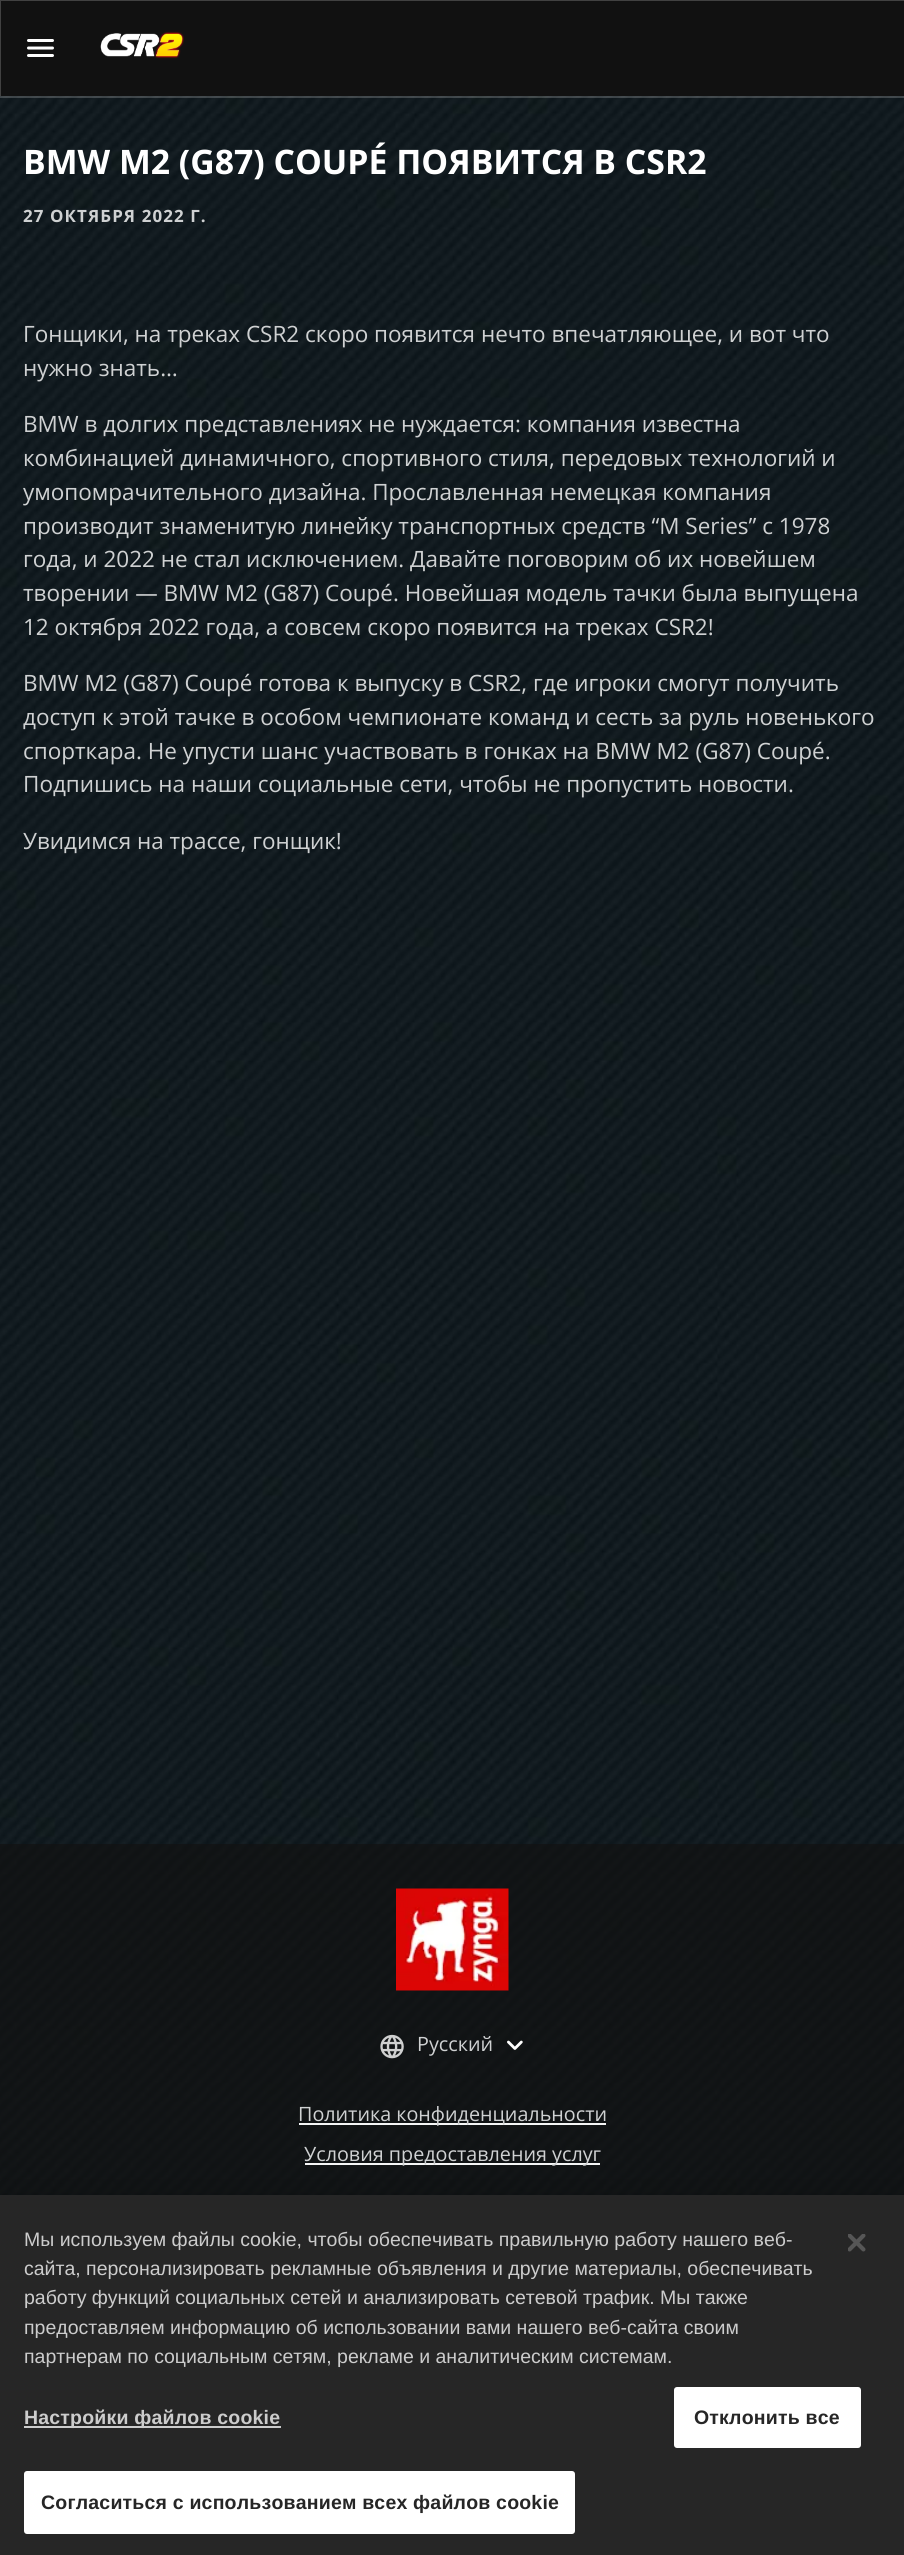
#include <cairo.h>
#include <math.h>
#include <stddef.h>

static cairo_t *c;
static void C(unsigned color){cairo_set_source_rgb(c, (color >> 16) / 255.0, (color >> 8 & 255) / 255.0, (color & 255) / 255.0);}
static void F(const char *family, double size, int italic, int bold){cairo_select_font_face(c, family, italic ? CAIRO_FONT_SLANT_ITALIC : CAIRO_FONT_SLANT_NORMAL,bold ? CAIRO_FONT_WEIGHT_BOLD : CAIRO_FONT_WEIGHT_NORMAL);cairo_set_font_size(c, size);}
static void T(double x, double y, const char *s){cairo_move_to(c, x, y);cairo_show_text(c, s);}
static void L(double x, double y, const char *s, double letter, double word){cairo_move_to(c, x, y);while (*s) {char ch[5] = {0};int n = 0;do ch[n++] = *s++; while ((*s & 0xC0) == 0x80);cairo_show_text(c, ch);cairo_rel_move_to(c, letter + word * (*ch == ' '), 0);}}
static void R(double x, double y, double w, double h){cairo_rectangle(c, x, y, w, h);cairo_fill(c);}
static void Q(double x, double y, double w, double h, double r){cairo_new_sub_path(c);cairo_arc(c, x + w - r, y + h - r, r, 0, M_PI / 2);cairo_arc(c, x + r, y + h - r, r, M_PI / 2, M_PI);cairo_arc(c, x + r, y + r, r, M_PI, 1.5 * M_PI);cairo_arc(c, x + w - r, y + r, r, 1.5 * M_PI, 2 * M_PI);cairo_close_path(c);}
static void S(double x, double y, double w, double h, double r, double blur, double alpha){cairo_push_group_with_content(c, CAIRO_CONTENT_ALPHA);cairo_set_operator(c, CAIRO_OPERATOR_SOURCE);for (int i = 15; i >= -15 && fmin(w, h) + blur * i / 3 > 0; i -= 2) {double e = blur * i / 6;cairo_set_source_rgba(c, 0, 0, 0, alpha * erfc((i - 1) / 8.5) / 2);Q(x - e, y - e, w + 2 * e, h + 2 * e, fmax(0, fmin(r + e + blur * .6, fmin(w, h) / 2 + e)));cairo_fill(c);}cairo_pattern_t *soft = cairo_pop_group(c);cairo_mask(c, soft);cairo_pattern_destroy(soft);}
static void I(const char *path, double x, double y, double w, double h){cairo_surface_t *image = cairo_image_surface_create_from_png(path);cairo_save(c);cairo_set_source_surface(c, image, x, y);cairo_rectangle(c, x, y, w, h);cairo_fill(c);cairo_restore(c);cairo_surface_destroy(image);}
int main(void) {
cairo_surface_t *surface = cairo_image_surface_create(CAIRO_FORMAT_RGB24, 904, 2555);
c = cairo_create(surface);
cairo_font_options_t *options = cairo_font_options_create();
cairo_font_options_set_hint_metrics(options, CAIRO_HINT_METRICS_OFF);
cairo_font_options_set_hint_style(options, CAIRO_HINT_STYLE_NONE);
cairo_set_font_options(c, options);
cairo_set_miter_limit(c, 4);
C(0xffffff);
cairo_paint(c);
C(0x111111);
R(0,0,904,96);
I("3.png",0,96,904,2099);
cairo_rectangle(c,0,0,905,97);
cairo_set_source_rgba(c,1,1,1,0.2);
cairo_stroke(c);
I("1.png",27,39,27,18);
I("2.png",100,31,84,28);
F("Open Sans",33.75,0,1);
C(0xffffff);
T(23,174,"BMW M2 (G87) COUPÉ ПОЯВИТСЯ В CSR2");
F("Open Sans",16.9,0,1);
C(0xcfd1d2);
L(23,222,"27 ОКТЯБРЯ 2022 Г.",1.1,0);
F("Open Sans",22.5,0,0);
T(23,342,"Гонщики, на треках CSR2 скоро появится нечто впечатляющее, и вот что");
T(23,376,"нужно знать…");
T(23,432,"BMW в долгих представлениях не нуждается: компания известна");
T(23,466,"комбинацией динамичного, спортивного стиля, передовых технологий и");
T(23,500,"умопомрачительного дизайна. Прославленная немецкая компания");
T(23,534,"производит знаменитую линейку транспортных средств “M Series” с 1978");
T(23,567,"года, и 2022 не стал исключением. Давайте поговорим об их новейшем");
T(23,601,"творении — BMW M2 (G87) Coupé. Новейшая модель тачки была выпущена");
T(23,635,"12 октября 2022 года, а совсем скоро появится на треках CSR2!");
T(23,691,"BMW M2 (G87) Coupé готова к выпуску в CSR2, где игроки смогут получить");
T(23,725,"доступ к этой тачке в особом чемпионате команд и сесть за руль новенького");
T(23,759,"спорткара. Не упусти шанс участвовать в гонках на BMW M2 (G87) Coupé.");
T(23,792,"Подпишись на наши социальные сети, чтобы не пропустить новости.");
T(23,849,"Увидимся на трассе, гонщик!");
cairo_set_source_rgba(c,0.067,0.067,0.067,0.7);
R(0,1844,904,351);
I("4.png",396,1888,113,103);
I("5.png",380,2034,24,25);
F("Open Sans",19.75,0,0);
C(0xcfd1d2);
T(417,2051,"Русский");
I("6.png",507,2040,16,10);
C(0xf5f6f6);
R(299,2123,307,2);
C(0xcfd1d2);
T(298,2121,"Политика конфиденциальности");
C(0xf5f6f6);
R(305,2163,295,2);
C(0xcfd1d2);
T(304,2161,"Условия предоставления услуг");
C(0x000000);
S(0,2195,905,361,0,13.5,.2);
C(0x262626);
R(0,2195,904,360);
F("Liberation Sans",19.5,0,0);
C(0xcccccc);
T(24,2246,"Мы используем файлы cookie, чтобы обеспечивать правильную работу нашего веб-");
T(24,2275,"сайта, персонализировать рекламные объявления и другие материалы, обеспечивать");
T(24,2304,"работу функций социальных сетей и анализировать сетевой трафик. Мы также");
T(24,2334,"предоставляем информацию об использовании вами нашего веб-сайта своим");
T(24,2363,"партнерам по социальным сетям, рекламе и аналитическим системам.");
R(24,2426,257,2);
F("Liberation Sans",19.5,0,1);
L(24,2424,"Настройки файлов cookie",.2,0);
C(0xffffff);
Q(675,2388,185,59,2);
cairo_fill_preserve(c);
cairo_stroke(c);
C(0x262626);
L(694,2424,"Отклонить все",.2,0);
C(0xffffff);
Q(25,2472,549,61,2);
cairo_fill_preserve(c);
cairo_stroke(c);
C(0x262626);
L(41,2509,"Согласиться с использованием всех файлов cookie",.2,0);
I("7.png",848,2234,18,18);
cairo_surface_write_to_png(surface, "o.png");
cairo_font_options_destroy(options);
cairo_destroy(c);
cairo_surface_destroy(surface);
return 0;
}
